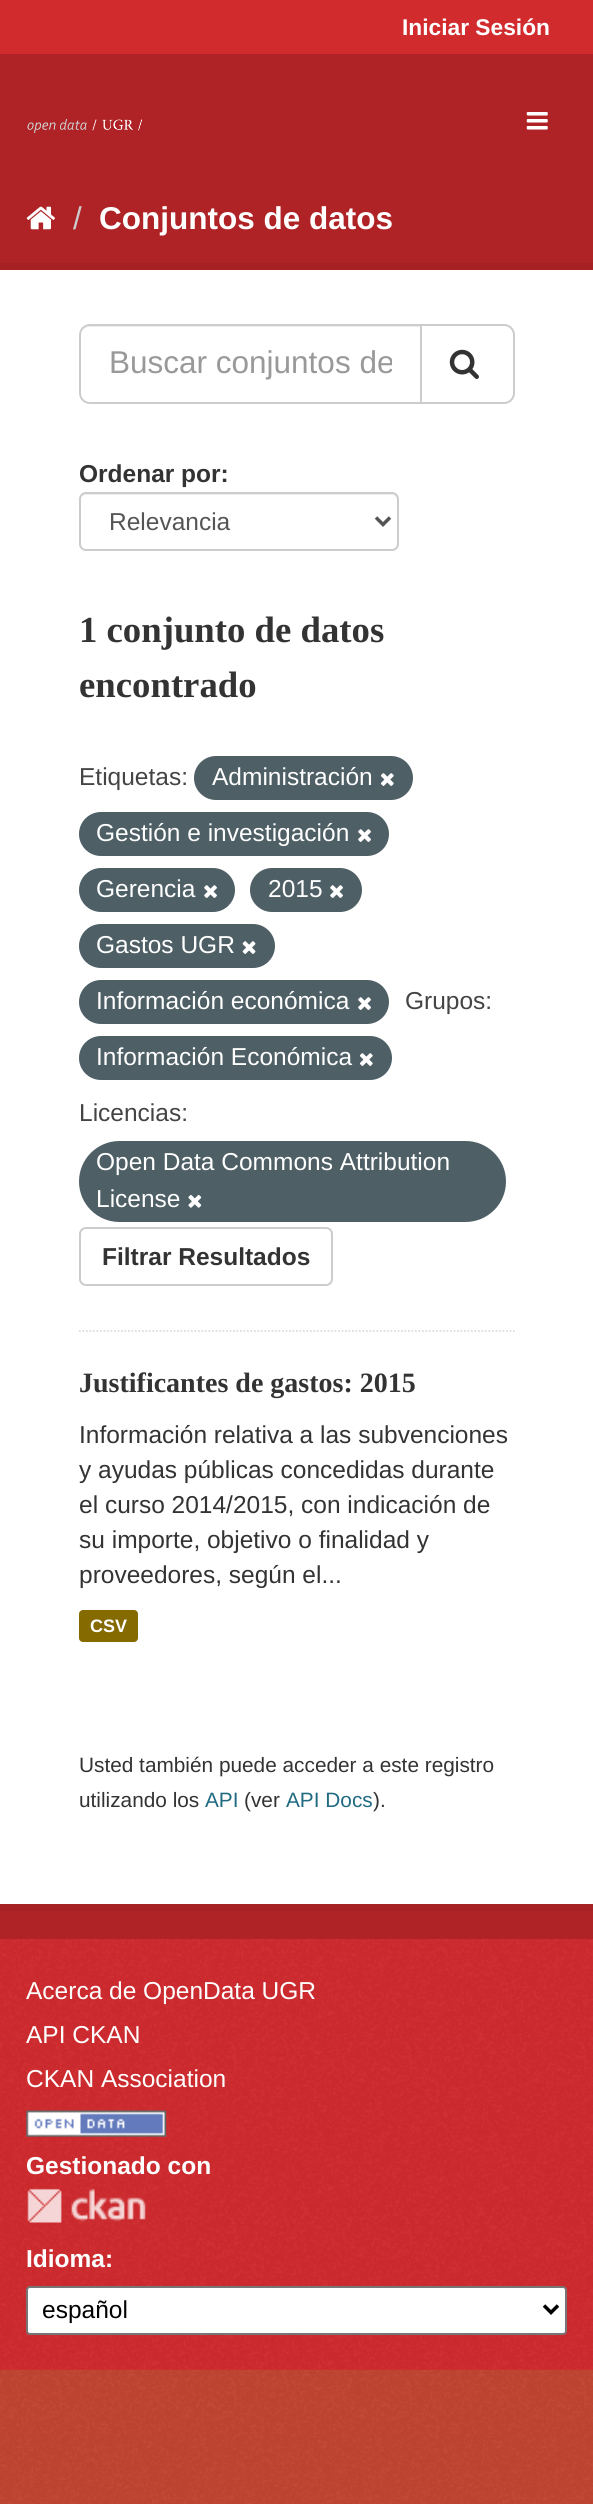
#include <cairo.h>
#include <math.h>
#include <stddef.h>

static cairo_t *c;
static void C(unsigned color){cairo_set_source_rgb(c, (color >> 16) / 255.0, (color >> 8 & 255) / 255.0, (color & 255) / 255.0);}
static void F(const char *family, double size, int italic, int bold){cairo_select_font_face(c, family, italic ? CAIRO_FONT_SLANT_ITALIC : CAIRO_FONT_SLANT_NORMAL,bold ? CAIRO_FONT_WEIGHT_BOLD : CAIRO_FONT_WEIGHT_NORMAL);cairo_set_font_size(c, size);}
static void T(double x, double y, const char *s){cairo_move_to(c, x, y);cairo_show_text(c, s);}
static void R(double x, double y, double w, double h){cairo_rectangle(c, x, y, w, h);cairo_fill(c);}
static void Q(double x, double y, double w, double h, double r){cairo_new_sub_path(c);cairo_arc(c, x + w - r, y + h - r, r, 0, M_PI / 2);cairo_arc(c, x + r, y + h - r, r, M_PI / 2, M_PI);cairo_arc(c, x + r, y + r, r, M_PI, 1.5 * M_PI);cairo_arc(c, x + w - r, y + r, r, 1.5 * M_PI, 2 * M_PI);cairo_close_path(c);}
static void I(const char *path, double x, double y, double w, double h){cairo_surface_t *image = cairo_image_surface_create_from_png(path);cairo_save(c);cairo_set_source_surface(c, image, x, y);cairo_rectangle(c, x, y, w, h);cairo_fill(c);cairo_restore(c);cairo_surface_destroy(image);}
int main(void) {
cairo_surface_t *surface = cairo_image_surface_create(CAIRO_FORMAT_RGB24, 593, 2504);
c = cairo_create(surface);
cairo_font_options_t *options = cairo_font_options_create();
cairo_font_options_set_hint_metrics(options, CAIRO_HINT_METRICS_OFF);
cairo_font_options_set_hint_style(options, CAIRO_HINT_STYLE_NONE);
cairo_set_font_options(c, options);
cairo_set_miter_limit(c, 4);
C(0xc14531);
cairo_paint(c);
I("1.png",0,2370,593,134);
C(0xd12b2e);
R(0,0,593,54);
F("Liberation Sans",22.75,0,1);
C(0xffffff);
T(402,35,"Iniciar Sesión");
C(0xaf2326);
R(0,54,593,1885);
I("2.png",27,119,115,14);
I("3.png",526,112,22,18);
I("4.png",26,206,29,24);
F("Liberation Sans",31.5,0,0);
C(0xcccccc);
T(73,229,"/");
F("Liberation Sans",31.5,0,1);
C(0xffffff);
T(99,229,"Conjuntos de datos");
cairo_rectangle(c,-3.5,266.5,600,1641);
C(0xa62124);
cairo_set_line_width(c,7);
cairo_stroke(c);
C(0xffffff);
R(0,270,593,1634);
cairo_new_path(c);
cairo_move_to(c,79,1331);
cairo_line_to(c,514.5,1331);
C(0xdddddd);
cairo_set_line_width(c,1.8);
cairo_set_dash(c,(double[]){1.75,1.75},2,0);
cairo_stroke(c);
C(0xececec);
cairo_new_path(c);
cairo_move_to(c,89,327);
cairo_line_to(c,420,327);
cairo_line_to(c,420,326);
cairo_line_to(c,90,326);
cairo_curve_to(c,87,326,85,327,83,329);
cairo_curve_to(c,85,328,87,327,89,327);
cairo_close_path(c);
cairo_fill(c);
cairo_new_path(c);
cairo_move_to(c,90,325);
cairo_line_to(c,421,325);
cairo_line_to(c,421,403);
cairo_line_to(c,90,403);
cairo_curve_to(c,84.5,403,80,398.5,80,393);
cairo_line_to(c,80,335);
cairo_curve_to(c,80,329.5,84.5,325,90,325);
cairo_close_path(c);
C(0xcccccc);
cairo_set_line_width(c,2);
cairo_set_dash(c,NULL,0,0);
cairo_stroke(c);
cairo_save(c);
cairo_rectangle(c,109,345,283,37);
cairo_clip(c);
F("Liberation Sans",31.5,0,0);
C(0x999999);
T(109,373,"Buscar conjuntos de");
cairo_restore(c);
C(0xffffff);
cairo_new_path(c);
cairo_move_to(c,421,325);
cairo_line_to(c,504,325);
cairo_curve_to(c,509.5,325,514,329.5,514,335);
cairo_line_to(c,514,393);
cairo_curve_to(c,514,398.5,509.5,403,504,403);
cairo_line_to(c,421,403);
cairo_close_path(c);
cairo_fill_preserve(c);
C(0xcccccc);
cairo_stroke(c);
I("5.png",449,349,30,30);
F("Liberation Sans",24.5,0,1);
C(0x333333);
T(79,482,"Ordenar por:");
C(0xececec);
cairo_new_path(c);
cairo_move_to(c,86,495);
cairo_line_to(c,392,495);
cairo_curve_to(c,395,495,397,498,397,500);
cairo_line_to(c,397,499);
cairo_curve_to(c,397,496,395,494,392,494);
cairo_line_to(c,86,494);
cairo_curve_to(c,84,494,82,495,81,497);
cairo_curve_to(c,82,496,84,495,86,495);
cairo_close_path(c);
cairo_fill(c);
Q(80,493,318,57,6);
C(0xcccccc);
cairo_stroke(c);
cairo_new_path(c);
cairo_move_to(c,376,517.5);
cairo_line_to(c,383,524.5);
cairo_line_to(c,390,517.5);
C(0x555555);
cairo_set_line_width(c,3.5);
cairo_stroke(c);
F("Liberation Sans",24.5,0,0);
T(109,530,"Relevancia");
F("Liberation Serif",36.75,0,1);
C(0x333333);
T(79,642,"1 conjunto de datos");
T(79,697,"encontrado");
F("Liberation Sans",24.5,0,0);
C(0x444444);
T(79,785,"Etiquetas:");
C(0x4e5f65);
Q(194,756,219,44,22);
cairo_fill(c);
C(0xffffff);
T(212,785,"Administración");
I("6.png",380,773,14,13);
C(0x4e5f65);
Q(79,812,310,44,22);
cairo_fill(c);
C(0xffffff);
T(96,841,"Gestión e investigación");
I("7.png",358,829,13,13);
C(0x4e5f65);
Q(79,868,156,44,22);
cairo_fill(c);
C(0xffffff);
T(96,897,"Gerencia");
I("7.png",204,885,13,13);
C(0x4e5f65);
Q(250,868,112,44,22);
cairo_fill(c);
C(0xffffff);
T(268,897,"2015");
I("7.png",330,885,13,13);
C(0x4e5f65);
Q(79,924,196,44,22);
cairo_fill(c);
C(0xffffff);
T(96,953,"Gastos UGR");
I("8.png",242,941,14,13);
C(0x4e5f65);
Q(79,980,310,44,22);
cairo_fill(c);
C(0xffffff);
T(96,1009,"Información económica");
I("9.png",358,997,13,13);
C(0x444444);
T(405,1009,"Grupos:");
C(0x4e5f65);
Q(79,1036,313,44,22);
cairo_fill(c);
C(0xffffff);
T(96,1065,"Información Económica");
I("6.png",359,1053,14,13);
C(0x444444);
T(79,1121,"Licencias:");
C(0x4e5f65);
Q(79,1141,427,81,40.5);
cairo_fill(c);
C(0xffffff);
T(96,1170,"Open Data Commons Attribution");
T(96,1207,"License");
I("10.png",188,1194,14,14);
Q(80,1228,252,57,6);
C(0xcccccc);
cairo_set_line_width(c,2);
cairo_stroke(c);
F("Liberation Sans",24.5,0,1);
C(0x333333);
T(102,1265,"Filtrar Resultados");
F("Liberation Serif",28,0,1);
T(79,1392,"Justificantes de gastos: 2015");
F("Liberation Sans",24.5,0,0);
T(79,1443,"Información relativa a las subvenciones");
T(79,1478,"y ayudas públicas concedidas durante");
T(79,1513,"el curso 2014/2015, con indicación de");
T(79,1548,"su importe, objetivo o finalidad y");
T(79,1583,"proveedores, según el...");
C(0x856a00);
Q(79,1610,59,32,4);
cairo_fill(c);
F("Liberation Sans",18,0,1);
C(0xffffff);
T(90,1632,"CSV");
F("Liberation Sans",20.8,0,0);
C(0x333333);
T(79,1772,"Usted también puede acceder a este registro");
T(79,1807,"utilizando los");
C(0x206b82);
T(205,1807,"API");
C(0x333333);
T(244,1807,"(ver");
C(0x206b82);
T(286,1807,"API Docs");
C(0x333333);
T(373,1807,").");
C(0xd12b2e);
R(0,1939,593,431);
I("11.png",0,1939,593,430);
F("Liberation Sans",24.5,0,0);
C(0xffffff);
T(26,1999,"Acerca de OpenData UGR");
T(26,2043,"API CKAN");
T(26,2087,"CKAN Association");
I("12.png",26,2110,141,27);
F("Liberation Sans",24.5,0,1);
T(26,2174,"Gestionado con");
I("13.png",27,2188,119,35);
T(26,2267,"Idioma:");
Q(27,2287,539,47,3);
cairo_fill_preserve(c);
C(0x767676);
cairo_stroke(c);
cairo_new_path(c);
cairo_move_to(c,544,2305.5);
cairo_line_to(c,551,2312.5);
cairo_line_to(c,558,2305.5);
C(0x000000);
cairo_set_line_width(c,3.5);
cairo_stroke(c);
F("Liberation Sans",24.5,0,0);
T(42,2318,"español");
cairo_surface_write_to_png(surface, "o.png");
cairo_font_options_destroy(options);
cairo_destroy(c);
cairo_surface_destroy(surface);
return 0;
}
